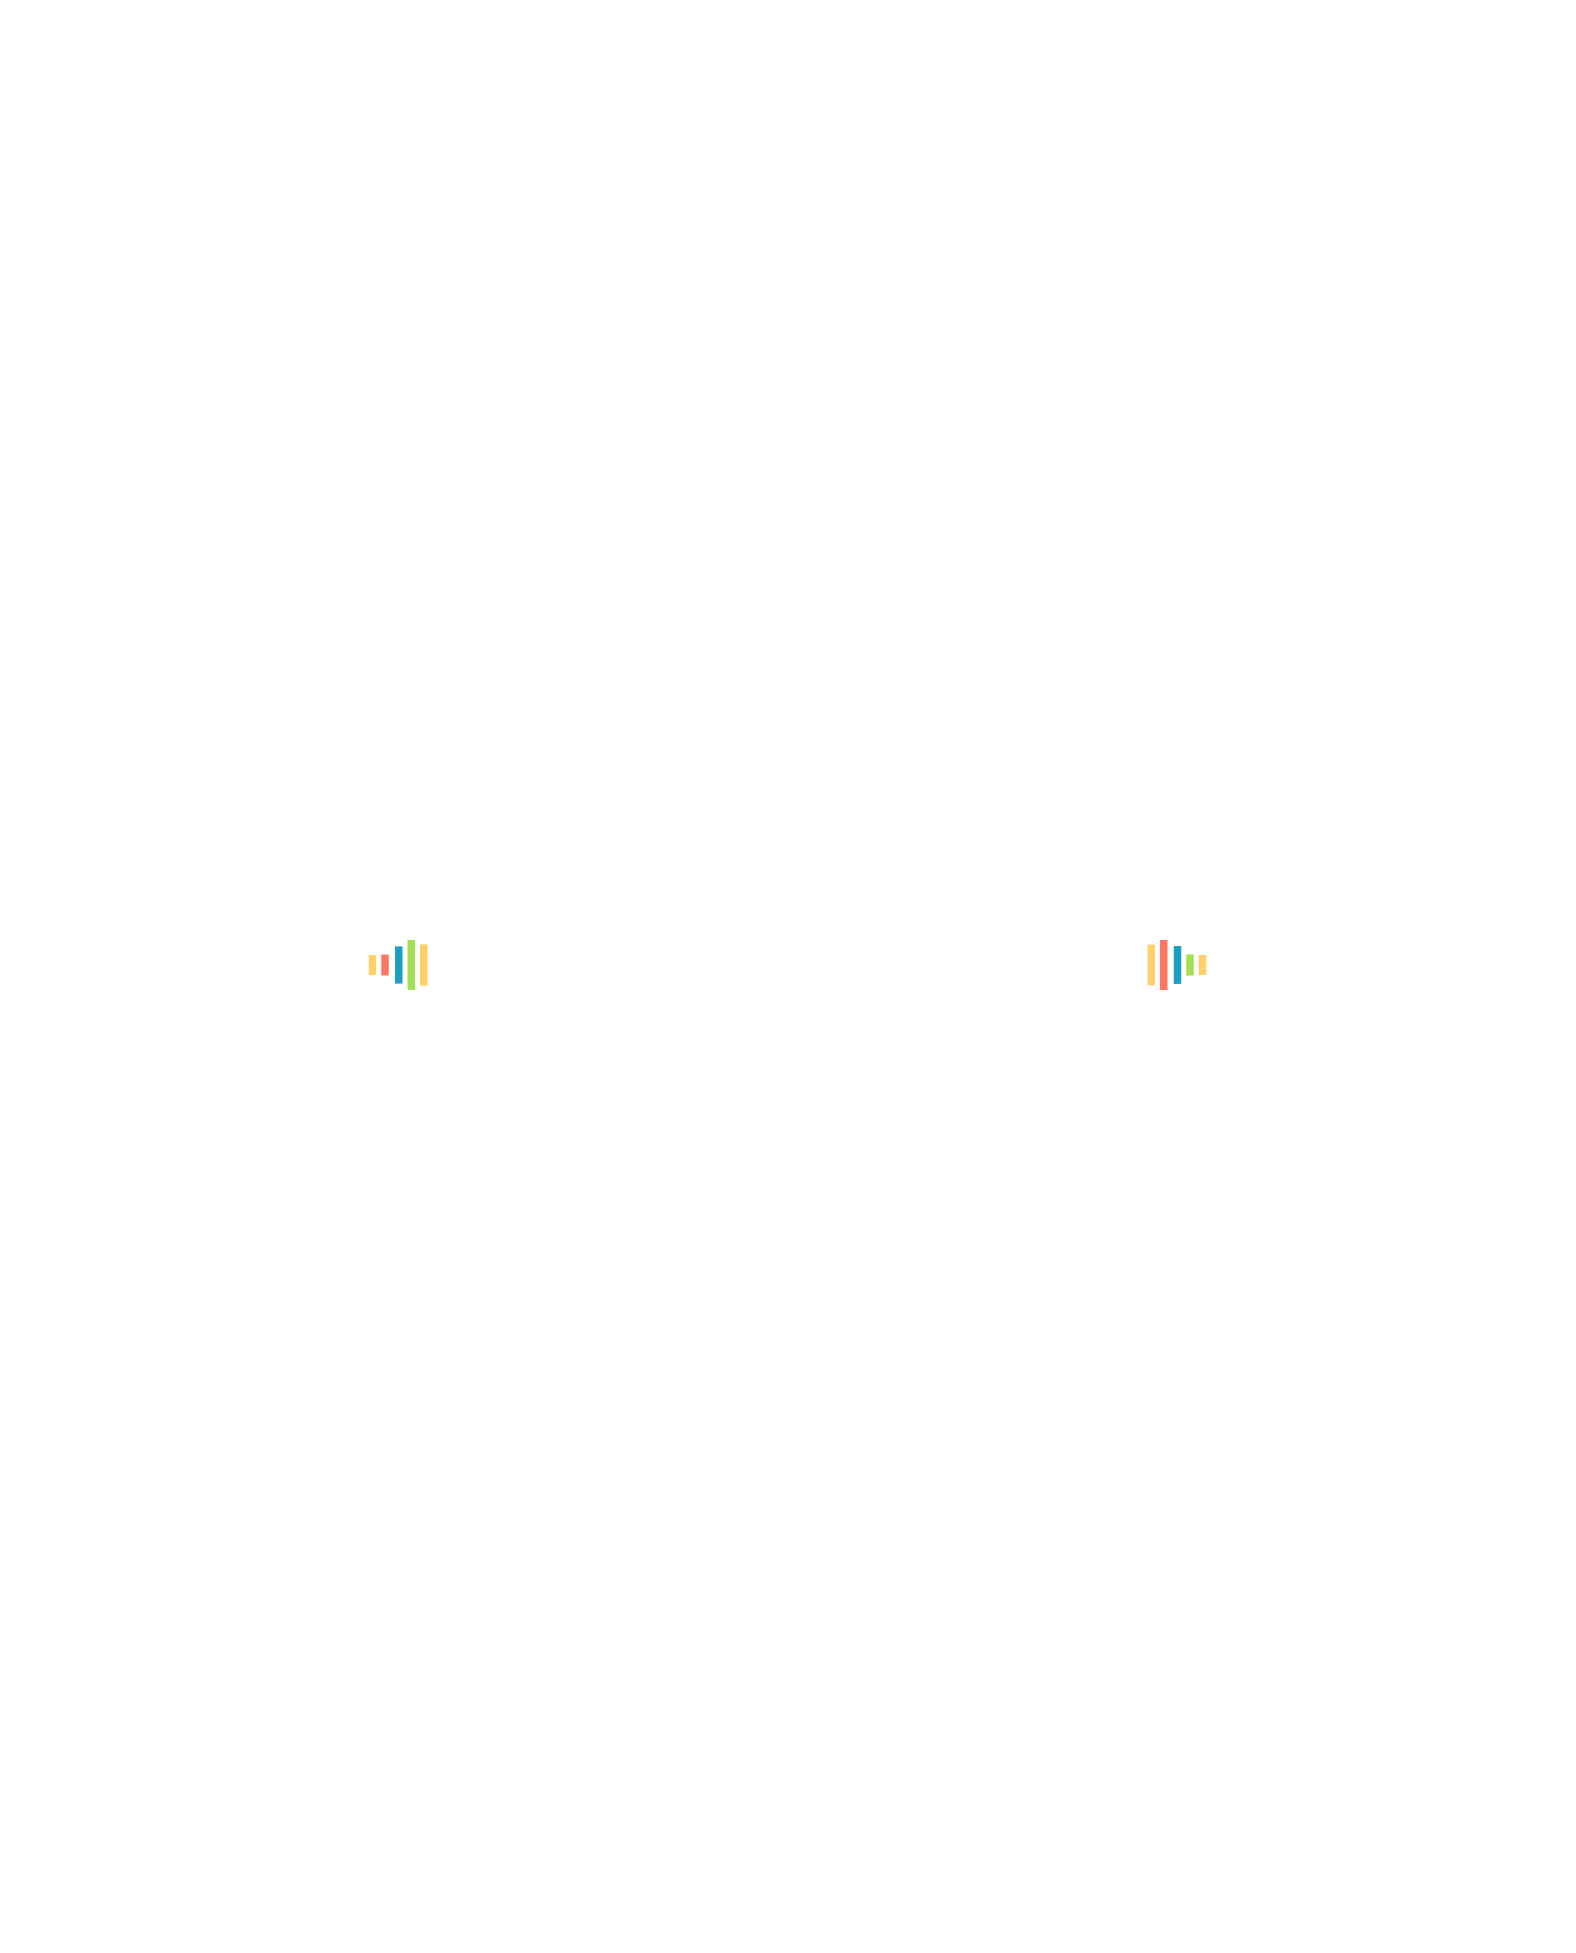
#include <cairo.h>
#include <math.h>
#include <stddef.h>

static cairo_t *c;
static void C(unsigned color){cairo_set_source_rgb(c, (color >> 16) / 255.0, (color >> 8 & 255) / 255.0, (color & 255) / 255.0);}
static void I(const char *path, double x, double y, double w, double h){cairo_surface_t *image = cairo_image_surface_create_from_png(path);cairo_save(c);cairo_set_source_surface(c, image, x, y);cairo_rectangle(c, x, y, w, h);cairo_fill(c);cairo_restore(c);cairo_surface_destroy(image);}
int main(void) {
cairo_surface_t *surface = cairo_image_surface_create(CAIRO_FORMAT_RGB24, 1576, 1953);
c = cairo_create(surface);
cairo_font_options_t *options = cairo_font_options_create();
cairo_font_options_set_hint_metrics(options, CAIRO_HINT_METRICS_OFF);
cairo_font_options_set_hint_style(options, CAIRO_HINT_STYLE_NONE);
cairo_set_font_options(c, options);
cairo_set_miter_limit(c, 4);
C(0xffffff);
cairo_paint(c);
I("1.png",368,940,60,50);
I("2.png",1147,940,60,50);
cairo_surface_write_to_png(surface, "o.png");
cairo_font_options_destroy(options);
cairo_destroy(c);
cairo_surface_destroy(surface);
return 0;
}
